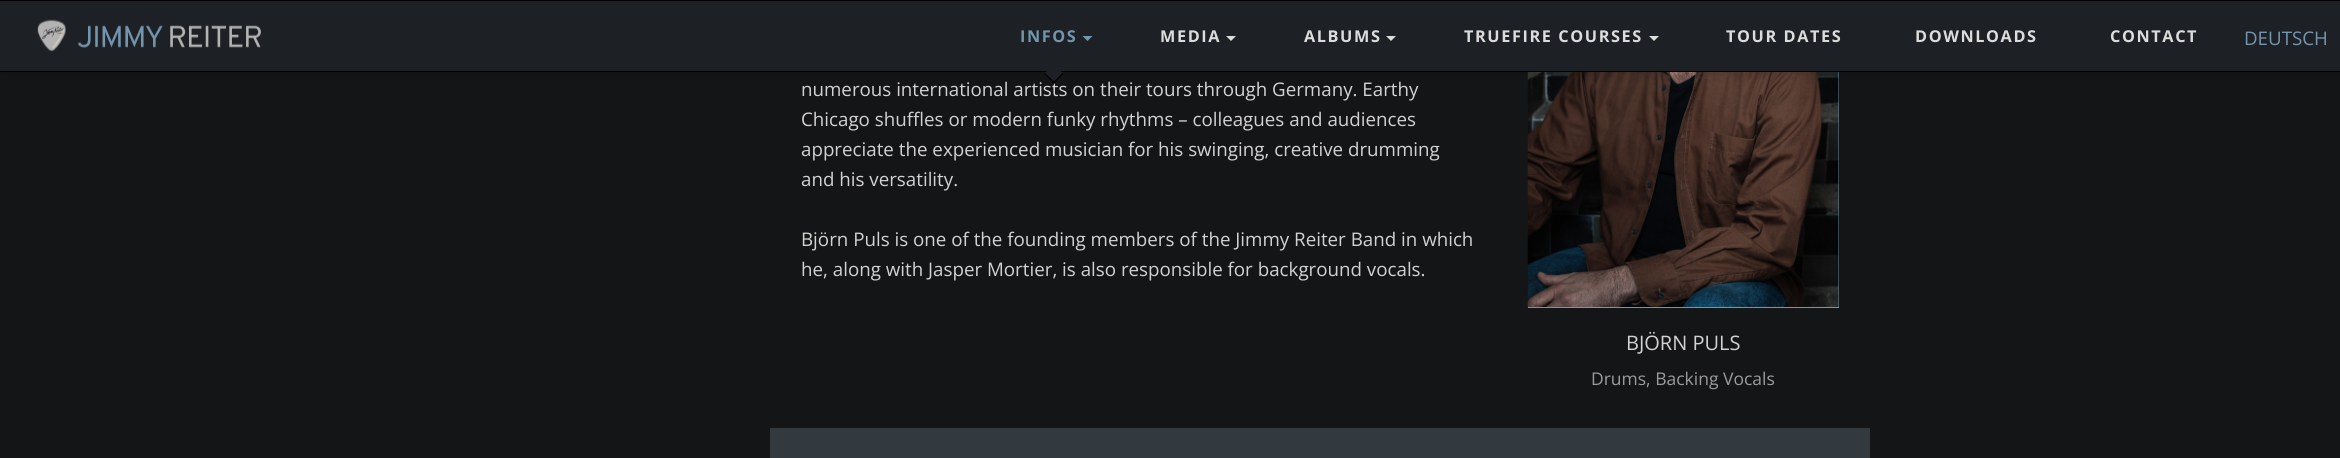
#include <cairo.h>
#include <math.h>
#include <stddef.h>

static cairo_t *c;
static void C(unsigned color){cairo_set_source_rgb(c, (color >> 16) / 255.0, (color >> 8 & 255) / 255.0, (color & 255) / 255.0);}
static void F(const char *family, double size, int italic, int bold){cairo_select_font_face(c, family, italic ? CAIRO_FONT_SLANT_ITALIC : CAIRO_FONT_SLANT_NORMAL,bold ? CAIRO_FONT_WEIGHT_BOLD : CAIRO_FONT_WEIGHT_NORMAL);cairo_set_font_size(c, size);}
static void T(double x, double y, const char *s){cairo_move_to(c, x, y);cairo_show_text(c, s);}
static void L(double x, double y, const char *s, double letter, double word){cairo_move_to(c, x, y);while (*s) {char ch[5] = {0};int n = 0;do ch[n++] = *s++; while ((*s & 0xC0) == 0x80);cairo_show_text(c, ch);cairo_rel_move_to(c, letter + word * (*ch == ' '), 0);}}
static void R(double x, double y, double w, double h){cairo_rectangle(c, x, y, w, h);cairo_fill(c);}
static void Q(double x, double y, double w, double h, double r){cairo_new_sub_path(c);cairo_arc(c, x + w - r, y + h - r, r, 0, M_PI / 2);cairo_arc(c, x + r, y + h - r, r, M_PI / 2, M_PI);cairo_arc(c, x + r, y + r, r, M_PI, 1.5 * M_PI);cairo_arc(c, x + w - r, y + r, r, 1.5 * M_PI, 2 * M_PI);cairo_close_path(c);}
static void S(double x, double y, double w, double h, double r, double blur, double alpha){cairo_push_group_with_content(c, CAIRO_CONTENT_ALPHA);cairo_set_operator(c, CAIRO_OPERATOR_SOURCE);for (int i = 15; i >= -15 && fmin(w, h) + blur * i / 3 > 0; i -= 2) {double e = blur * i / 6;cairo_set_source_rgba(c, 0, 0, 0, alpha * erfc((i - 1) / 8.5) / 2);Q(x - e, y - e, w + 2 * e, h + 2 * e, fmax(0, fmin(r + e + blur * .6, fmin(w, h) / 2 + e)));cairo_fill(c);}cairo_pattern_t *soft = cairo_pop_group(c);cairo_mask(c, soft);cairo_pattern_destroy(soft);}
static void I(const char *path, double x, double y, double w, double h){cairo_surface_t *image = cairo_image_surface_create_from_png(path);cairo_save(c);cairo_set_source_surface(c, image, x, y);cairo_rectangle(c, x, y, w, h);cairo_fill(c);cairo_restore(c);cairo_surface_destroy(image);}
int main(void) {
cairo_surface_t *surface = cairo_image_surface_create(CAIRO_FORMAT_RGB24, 2340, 458);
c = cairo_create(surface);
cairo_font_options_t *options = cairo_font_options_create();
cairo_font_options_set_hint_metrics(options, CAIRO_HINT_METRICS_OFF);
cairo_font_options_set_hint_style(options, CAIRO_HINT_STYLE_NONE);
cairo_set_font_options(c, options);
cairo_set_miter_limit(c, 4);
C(0x141516);
cairo_paint(c);
C(0x7395ae);
R(1528,72,311,236);
I("2.png",1527,72,312,235);
C(0x000000);
S(0,0,2340,73,0,6,.2);
C(0x1d2125);
R(0,1,2340,70);
C(0x000000);
R(0,0,2340,1);
R(0,71,2340,1);
I("1.png",37,19,224,33);
F("Open Sans",16.25,0,1);
C(0x7395ae);
L(1020,42,"INFOS",1.6,0);
cairo_new_path(c);
cairo_move_to(c,1082.5,36);
cairo_line_to(c,1092.5,36);
cairo_line_to(c,1087.5,41);
cairo_close_path(c);
cairo_fill(c);
F("Open Sans",18.75,0,0);
C(0xd2d2d2);
T(801,96,"numerous international artists on their tours through Germany. Earthy");
C(0x1d2125);
cairo_new_path(c);
cairo_move_to(c,1054,64);
cairo_line_to(c,1062.5,73);
cairo_line_to(c,1054,81.5);
cairo_line_to(c,1045,73);
cairo_close_path(c);
cairo_fill(c);
C(0x000000);
cairo_new_path(c);
cairo_move_to(c,1062.5,73);
cairo_line_to(c,1063.5,73.5);
cairo_line_to(c,1054,83.5);
cairo_line_to(c,1053,82.5);
cairo_close_path(c);
cairo_fill(c);
cairo_new_path(c);
cairo_move_to(c,1045,73);
cairo_line_to(c,1055,82.5);
cairo_line_to(c,1054,83.5);
cairo_line_to(c,1044,73.5);
cairo_close_path(c);
cairo_fill(c);
F("Open Sans",16.25,0,1);
C(0xdcdcdc);
L(1160,42,"MEDIA",1.6,0);
cairo_new_path(c);
cairo_move_to(c,1226,36);
cairo_line_to(c,1236,36);
cairo_line_to(c,1231,41);
cairo_close_path(c);
cairo_fill(c);
L(1304,42,"ALBUMS",1.6,0);
cairo_new_path(c);
cairo_move_to(c,1386,36);
cairo_line_to(c,1396,36);
cairo_line_to(c,1391,41);
cairo_close_path(c);
cairo_fill(c);
L(1464,42,"TRUEFIRE COURSES",1.6,0);
cairo_new_path(c);
cairo_move_to(c,1649,36);
cairo_line_to(c,1659,36);
cairo_line_to(c,1654,41);
cairo_close_path(c);
cairo_fill(c);
L(1726,42,"TOUR DATES",1.6,0);
L(1915,42,"DOWNLOADS",1.6,0);
L(2110,42,"CONTACT",1.6,0);
F("Open Sans",18.75,0,0);
C(0x7395ae);
T(2244,45,"DEUTSCH");
C(0xd2d2d2);
T(801,126,"Chicago shuffles or modern funky rhythms – colleagues and audiences");
T(801,156,"appreciate the experienced musician for his swinging, creative drumming");
T(801,186,"and his versatility.");
T(801,246,"Björn Puls is one of the founding members of the Jimmy Reiter Band in which");
T(801,276,"he, along with Jasper Mortier, is also responsible for background vocals.");
F("Open Sans",20,0,0);
T(1626,350,"BJÖRN PULS");
F("Open Sans",17.5,0,0);
C(0x9b9b9b);
T(1591,385,"Drums, Backing Vocals");
C(0x333a3f);
R(770,428,1100,30);
cairo_surface_write_to_png(surface, "o.png");
cairo_font_options_destroy(options);
cairo_destroy(c);
cairo_surface_destroy(surface);
return 0;
}
